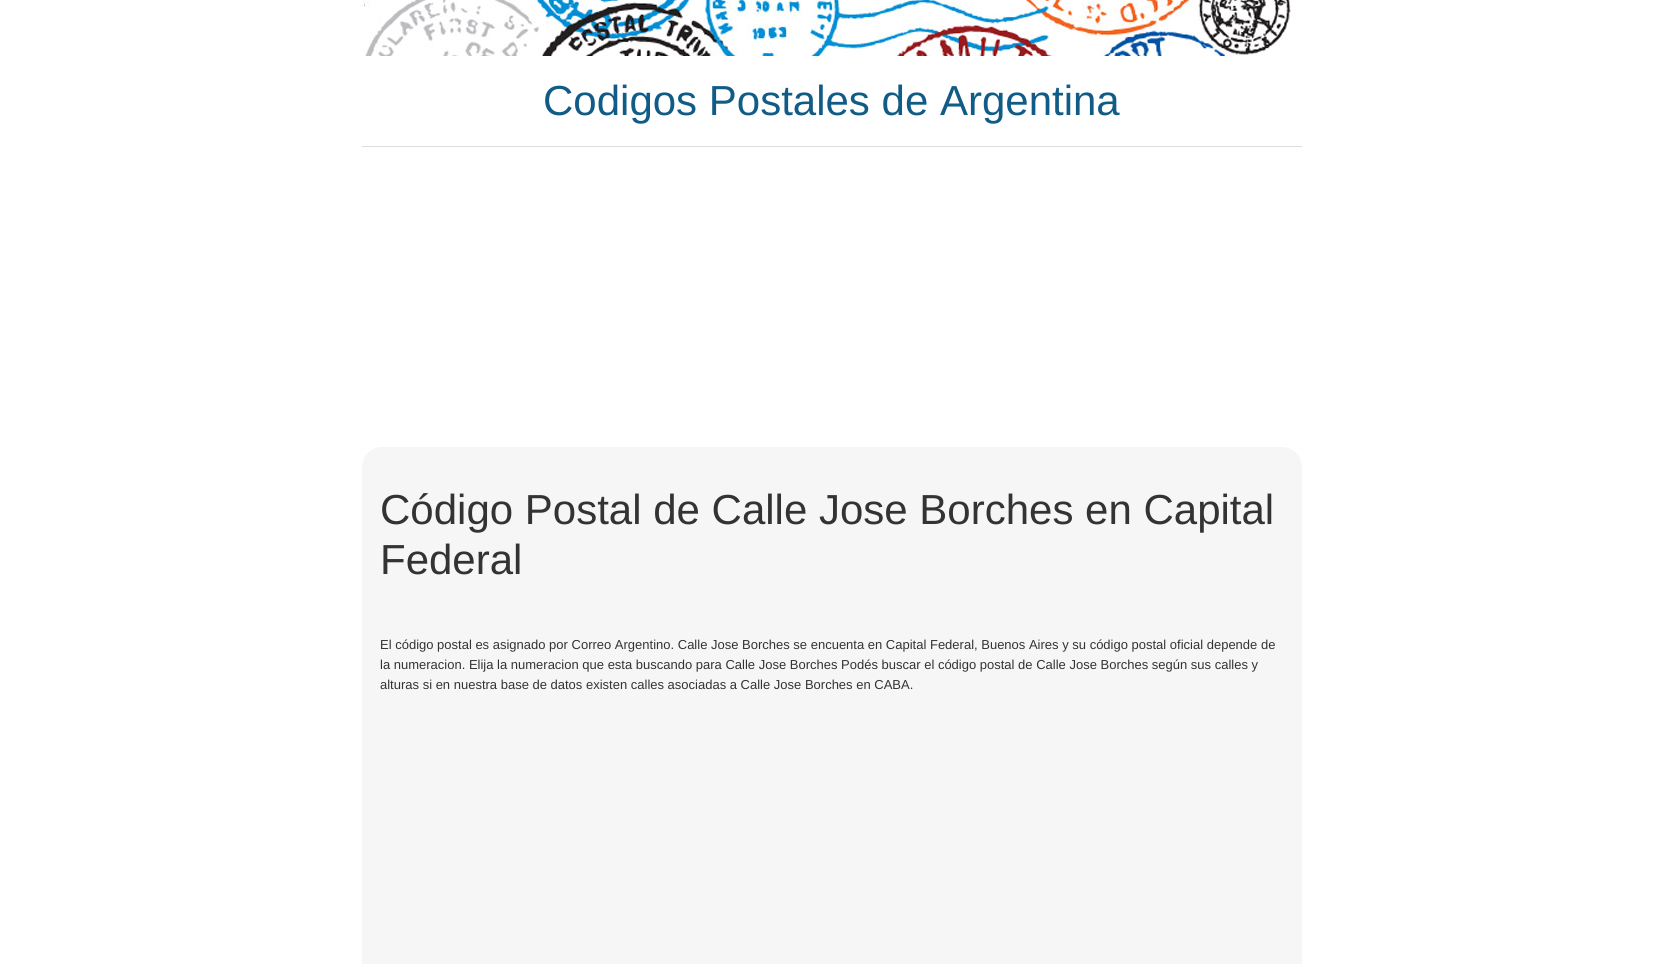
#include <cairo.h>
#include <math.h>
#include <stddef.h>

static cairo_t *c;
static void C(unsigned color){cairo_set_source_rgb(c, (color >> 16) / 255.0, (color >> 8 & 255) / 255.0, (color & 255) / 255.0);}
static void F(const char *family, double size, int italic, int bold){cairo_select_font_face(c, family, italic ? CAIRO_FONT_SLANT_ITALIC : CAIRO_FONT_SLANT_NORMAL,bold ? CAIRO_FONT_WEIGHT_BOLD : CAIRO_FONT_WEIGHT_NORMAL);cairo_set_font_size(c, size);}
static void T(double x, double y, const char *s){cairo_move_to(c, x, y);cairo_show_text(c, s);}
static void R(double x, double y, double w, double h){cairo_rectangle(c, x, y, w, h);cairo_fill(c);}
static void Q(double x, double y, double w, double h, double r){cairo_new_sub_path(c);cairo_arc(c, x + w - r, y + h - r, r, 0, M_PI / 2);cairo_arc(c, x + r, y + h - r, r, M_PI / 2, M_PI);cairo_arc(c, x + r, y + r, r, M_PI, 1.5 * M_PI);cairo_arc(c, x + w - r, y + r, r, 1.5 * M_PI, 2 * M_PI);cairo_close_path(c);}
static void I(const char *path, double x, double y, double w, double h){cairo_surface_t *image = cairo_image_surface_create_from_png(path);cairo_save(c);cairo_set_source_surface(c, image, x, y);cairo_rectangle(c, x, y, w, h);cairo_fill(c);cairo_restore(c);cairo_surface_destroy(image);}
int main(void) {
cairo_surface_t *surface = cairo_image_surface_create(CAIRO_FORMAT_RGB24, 1663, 964);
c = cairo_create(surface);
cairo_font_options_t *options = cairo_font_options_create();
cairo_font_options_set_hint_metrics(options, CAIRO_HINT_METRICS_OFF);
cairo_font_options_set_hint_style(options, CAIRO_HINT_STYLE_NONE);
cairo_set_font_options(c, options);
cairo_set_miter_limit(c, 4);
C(0xffffff);
cairo_paint(c);
I("1.png",362,0,929,56);
C(0xdddddd);
R(362,146,940,1);
F("Liberation Sans",42,0,0);
C(0x105c86);
T(543,115,"Codigos Postales de Argentina");
C(0xf7f6f6);
Q(362,447,940,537,20);
cairo_fill(c);
C(0x333333);
T(380,524,"Código Postal de Calle Jose Borches en Capital");
T(380,574,"Federal");
F("Liberation Sans",13,0,0);
T(380,649,"El código postal es asignado por Correo Argentino. Calle Jose Borches se encuenta en Capital Federal, Buenos Aires y su código postal oficial depende de");
T(380,669,"la numeracion. Elija la numeracion que esta buscando para Calle Jose Borches Podés buscar el código postal de Calle Jose Borches según sus calles y");
T(380,689,"alturas si en nuestra base de datos existen calles asociadas a Calle Jose Borches en CABA.");
cairo_surface_write_to_png(surface, "o.png");
cairo_font_options_destroy(options);
cairo_destroy(c);
cairo_surface_destroy(surface);
return 0;
}
